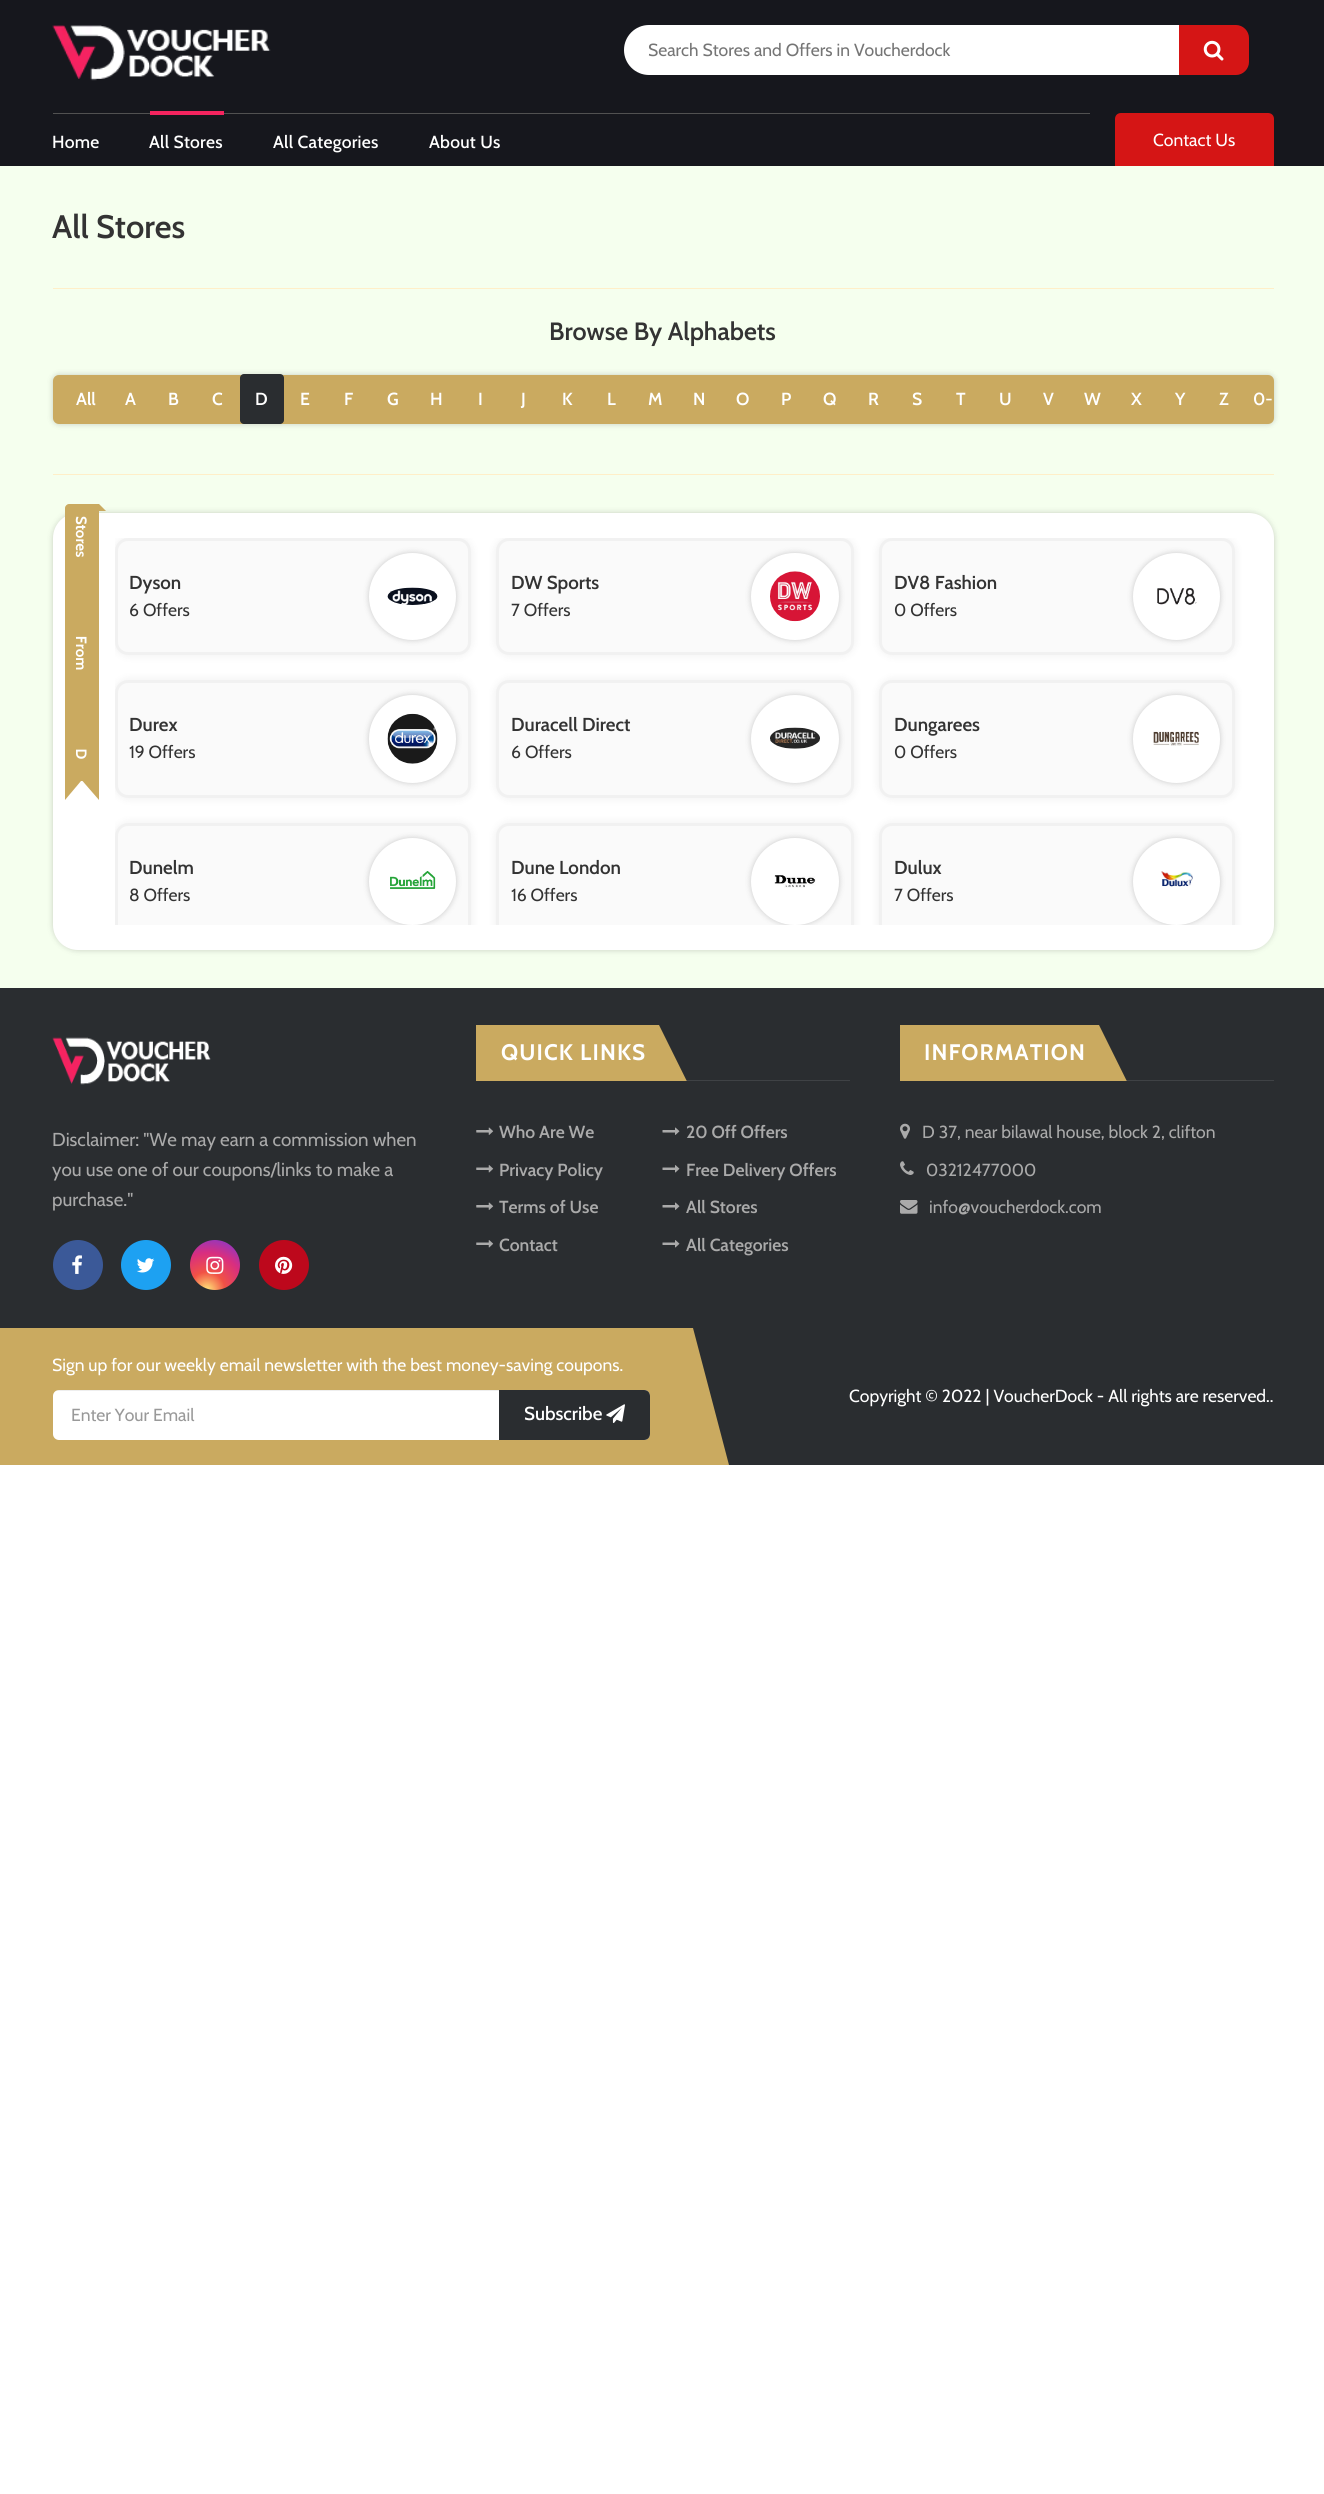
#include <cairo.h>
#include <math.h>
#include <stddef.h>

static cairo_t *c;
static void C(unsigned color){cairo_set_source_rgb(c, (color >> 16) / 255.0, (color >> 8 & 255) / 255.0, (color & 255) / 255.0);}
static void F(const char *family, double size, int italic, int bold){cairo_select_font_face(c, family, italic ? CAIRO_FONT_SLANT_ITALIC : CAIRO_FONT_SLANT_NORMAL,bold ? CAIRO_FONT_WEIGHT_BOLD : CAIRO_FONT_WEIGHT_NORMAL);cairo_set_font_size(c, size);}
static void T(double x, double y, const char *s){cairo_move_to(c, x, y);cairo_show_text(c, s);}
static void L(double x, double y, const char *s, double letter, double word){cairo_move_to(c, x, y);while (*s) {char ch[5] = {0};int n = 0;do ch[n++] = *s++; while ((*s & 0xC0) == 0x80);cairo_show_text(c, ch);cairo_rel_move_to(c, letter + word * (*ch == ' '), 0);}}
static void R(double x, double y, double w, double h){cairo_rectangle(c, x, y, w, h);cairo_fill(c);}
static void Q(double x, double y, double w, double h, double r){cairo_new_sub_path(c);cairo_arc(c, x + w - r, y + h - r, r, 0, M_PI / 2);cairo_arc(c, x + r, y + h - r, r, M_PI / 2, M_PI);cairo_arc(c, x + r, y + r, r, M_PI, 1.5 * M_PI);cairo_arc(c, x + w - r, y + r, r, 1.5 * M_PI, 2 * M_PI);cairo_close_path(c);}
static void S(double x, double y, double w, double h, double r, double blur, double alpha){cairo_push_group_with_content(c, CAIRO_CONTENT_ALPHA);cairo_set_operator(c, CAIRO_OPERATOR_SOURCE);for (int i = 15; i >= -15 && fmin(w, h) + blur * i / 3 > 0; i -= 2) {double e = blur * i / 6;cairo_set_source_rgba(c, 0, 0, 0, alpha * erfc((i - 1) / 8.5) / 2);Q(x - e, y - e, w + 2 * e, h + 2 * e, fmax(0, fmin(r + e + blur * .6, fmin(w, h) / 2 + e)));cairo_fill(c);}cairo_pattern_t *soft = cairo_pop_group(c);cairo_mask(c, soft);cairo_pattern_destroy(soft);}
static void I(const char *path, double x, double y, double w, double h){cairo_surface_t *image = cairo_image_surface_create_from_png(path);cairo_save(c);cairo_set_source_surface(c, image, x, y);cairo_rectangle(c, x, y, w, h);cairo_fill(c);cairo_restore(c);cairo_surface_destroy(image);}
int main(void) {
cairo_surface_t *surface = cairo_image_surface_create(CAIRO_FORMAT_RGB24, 1324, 2494);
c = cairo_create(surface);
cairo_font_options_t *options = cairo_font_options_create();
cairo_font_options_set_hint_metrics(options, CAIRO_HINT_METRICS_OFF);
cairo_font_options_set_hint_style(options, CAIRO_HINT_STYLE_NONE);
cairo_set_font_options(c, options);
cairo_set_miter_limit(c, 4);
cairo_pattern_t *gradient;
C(0xffffff);
cairo_paint(c);
C(0x16171d);
R(0,0,1324,166);
I("1.png",52,25,219,56);
C(0xffffff);
Q(624,25,625,50,25);
cairo_fill(c);
F("Cabin",17.5,0,0);
C(0x757575);
T(648,56,"Search Stores and Offers in Voucherdock");
C(0xd51515);
cairo_new_path(c);
cairo_move_to(c,1179,25);
cairo_line_to(c,1236,25);
cairo_curve_to(c,1243,25,1249,31,1249,38);
cairo_line_to(c,1249,62);
cairo_curve_to(c,1249,69,1243,75,1236,75);
cairo_line_to(c,1179,75);
cairo_close_path(c);
cairo_fill(c);
I("2.png",1203,40,21,21);
C(0x515151);
R(53,113,1037,1);
F("Cabin Medium",17.5,0,0);
C(0xffffff);
L(52,148,"Home",.25,0);
C(0xf5245f);
R(150,111,74,4);
C(0xffffff);
L(149,148,"All Stores",.25,0);
L(273,148,"All Categories",.25,0);
L(429,148,"About Us",.25,0);
C(0xd51515);
cairo_new_path(c);
cairo_move_to(c,1121,113);
cairo_line_to(c,1268,113);
cairo_curve_to(c,1271.5,113,1274,115.5,1274,119);
cairo_line_to(c,1274,166);
cairo_line_to(c,1115,166);
cairo_line_to(c,1115,119);
cairo_curve_to(c,1115,115.5,1117.5,113,1121,113);
cairo_close_path(c);
cairo_fill(c);
F("Cabin",17.5,0,0);
C(0xffffff);
T(1153,146,"Contact Us");
C(0xf5ffee);
R(0,166,1324,822);
F("Cabin SemiBold",32.5,0,0);
C(0x333333);
T(52,238,"All Stores");
C(0xffefc8);
R(53,288,1221,1);
R(53,474,1221,1);
F("Cabin SemiBold",25,0,0);
C(0x333333);
T(549,340,"Browse By Alphabets");
C(0x000000);
S(53,375,1221,49,6,3,.2);
C(0xcaaa60);
Q(53,375,1221,49,6);
cairo_fill(c);
F("Cabin SemiBold",17.5,0,0);
C(0xffffff);
T(76,405,"All");
T(125,405,"A");
T(168,405,"B");
T(212,405,"C");
C(0x2a2d30);
Q(240,374,44,50,4);
cairo_fill(c);
C(0xffffff);
T(255,405,"D");
T(300,405,"E");
T(344,405,"F");
T(387,405,"G");
T(430,405,"H");
T(478,405,"I");
T(521,405,"J");
T(562,405,"K");
T(607,405,"L");
T(648,405,"M");
T(693,405,"N");
T(736,405,"O");
T(781,405,"P");
T(823,405,"Q");
T(868,405,"R");
T(912,405,"S");
T(956,405,"T");
T(999,405,"U");
T(1043,405,"V");
T(1084,405,"W");
T(1131,405,"X");
T(1175,405,"Y");
T(1219,405,"Z");
T(1253,405,"0-");
C(0x000000);
S(53,513,1221,437,25,3,.2);
C(0xffffff);
Q(53,513,1221,437,25);
cairo_fill(c);
C(0xcaaa60);
R(65,773,34,8);
cairo_new_path(c);
cairo_move_to(c,69,504);
cairo_line_to(c,99,504);
cairo_line_to(c,99,773);
cairo_line_to(c,65,773);
cairo_line_to(c,65,508);
cairo_curve_to(c,65,506,67,504,69,504);
cairo_close_path(c);
cairo_fill(c);
cairo_new_path(c);
cairo_move_to(c,106,511);
cairo_line_to(c,99,511);
cairo_line_to(c,99,504);
cairo_close_path(c);
cairo_fill(c);
F("Cabin",15,0,1);
C(0xffffff);
cairo_save(c);
cairo_translate(c,76,516);
cairo_rotate(c,90 * M_PI / 180);
L(0,0,"Stores From D",0,75);
cairo_restore(c);
C(0xcaaa60);
cairo_new_path(c);
cairo_move_to(c,99,781);
cairo_line_to(c,99,800);
cairo_line_to(c,82.5,781);
cairo_close_path(c);
cairo_move_to(c,65,800);
cairo_line_to(c,65,781);
cairo_line_to(c,81,781);
cairo_close_path(c);
cairo_fill(c);
cairo_save(c);
cairo_rectangle(c,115,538,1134,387);
cairo_clip(c);
C(0x000000);
S(115,538,356,117,13,5,.07);
cairo_restore(c);
C(0xfafafa);
Q(116.5,539.5,353,114,11.5);
cairo_fill_preserve(c);
C(0xf1f1f1);
cairo_set_line_width(c,3);
cairo_stroke(c);
F("Cabin SemiBold",18.75,0,0);
C(0x333333);
T(129,589,"Dyson");
F("Cabin",17.5,0,0);
T(129,616,"6 Offers");
C(0x000000);
S(369,553,87,87,43.5,3,.2);
C(0xffffff);
cairo_arc(c,412.5,596.5,43.5,0,2 * M_PI);
cairo_fill(c);
I("3.png",387,587,51,18);
cairo_save(c);
cairo_rectangle(c,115,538,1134,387);
cairo_clip(c);
C(0x000000);
S(496,538,358,117,13,5,.07);
cairo_restore(c);
C(0xfafafa);
Q(497.5,539.5,355,114,11.5);
cairo_fill_preserve(c);
C(0xf1f1f1);
cairo_stroke(c);
F("Cabin SemiBold",18.75,0,0);
C(0x333333);
T(511,589,"DW Sports");
F("Cabin",17.5,0,0);
T(511,616,"7 Offers");
C(0x000000);
S(751,553,88,87,43.5,3,.2);
C(0xffffff);
Q(751,553,88,87,43.5);
cairo_fill(c);
I("4.png",770,571,50,51);
cairo_save(c);
cairo_rectangle(c,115,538,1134,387);
cairo_clip(c);
C(0x000000);
S(879,538,356,117,13,5,.07);
cairo_restore(c);
C(0xfafafa);
Q(880.5,539.5,353,114,11.5);
cairo_fill_preserve(c);
C(0xf1f1f1);
cairo_stroke(c);
F("Cabin SemiBold",18.75,0,0);
C(0x333333);
T(894,589,"DV8 Fashion");
F("Cabin",17.5,0,0);
T(894,616,"0 Offers");
C(0x000000);
S(1133,553,87,87,43.5,3,.2);
C(0xffffff);
cairo_arc(c,1176.5,596.5,43.5,0,2 * M_PI);
cairo_fill(c);
I("5.png",1157,588,40,17);
cairo_save(c);
cairo_rectangle(c,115,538,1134,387);
cairo_clip(c);
C(0x000000);
S(115,680,356,118,13,5,.07);
cairo_restore(c);
C(0xfafafa);
Q(116.5,681.5,353,115,11.5);
cairo_fill_preserve(c);
C(0xf1f1f1);
cairo_stroke(c);
F("Cabin SemiBold",18.75,0,0);
C(0x333333);
T(129,731,"Durex");
F("Cabin",17.5,0,0);
T(129,758,"19 Offers");
C(0x000000);
S(369,695,87,88,43.5,3,.2);
C(0xffffff);
Q(369,695,87,88,43.5);
cairo_fill(c);
I("6.png",387,713,51,51);
C(0x000000);
S(496,680,358,118,13,5,.07);
C(0xfafafa);
Q(497.5,681.5,355,115,11.5);
cairo_fill_preserve(c);
C(0xf1f1f1);
cairo_stroke(c);
F("Cabin SemiBold",18.75,0,0);
C(0x333333);
T(511,731,"Duracell Direct");
F("Cabin",17.5,0,0);
T(511,758,"6 Offers");
C(0x000000);
S(751,695,88,88,44,3,.2);
C(0xffffff);
cairo_arc(c,795,739,44,0,2 * M_PI);
cairo_fill(c);
I("7.png",770,727,50,22);
C(0x000000);
S(879,680,356,118,13,5,.07);
C(0xfafafa);
Q(880.5,681.5,353,115,11.5);
cairo_fill_preserve(c);
C(0xf1f1f1);
cairo_stroke(c);
F("Cabin SemiBold",18.75,0,0);
C(0x333333);
T(894,731,"Dungarees");
F("Cabin",17.5,0,0);
T(894,758,"0 Offers");
C(0x000000);
S(1133,695,87,88,43.5,3,.2);
C(0xffffff);
Q(1133,695,87,88,43.5);
cairo_fill(c);
I("8.png",1153,731,46,15);
cairo_save(c);
cairo_rectangle(c,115,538,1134,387);
cairo_clip(c);
C(0x000000);
S(115,823,356,117,13,5,.07);
cairo_restore(c);
C(0xfafafa);
cairo_new_path(c);
cairo_move_to(c,128,823);
cairo_line_to(c,458,823);
cairo_curve_to(c,465,823,471,829,471,836);
cairo_line_to(c,471,925);
cairo_line_to(c,115,925);
cairo_line_to(c,115,836);
cairo_curve_to(c,115,829,121,823,128,823);
cairo_close_path(c);
cairo_fill(c);
cairo_save(c);
cairo_rectangle(c,115,538,1134,387);
cairo_clip(c);
Q(116.5,824.5,353,114,11.5);
C(0xf1f1f1);
cairo_stroke(c);
cairo_restore(c);
F("Cabin SemiBold",18.75,0,0);
C(0x333333);
T(129,874,"Dunelm");
F("Cabin",17.5,0,0);
T(129,901,"8 Offers");
cairo_save(c);
cairo_rectangle(c,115,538,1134,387);
cairo_clip(c);
C(0x000000);
S(369,838,87,87,43.5,3,.2);
cairo_restore(c);
C(0xffffff);
cairo_arc(c,412.5,881.5,43.5,0,2 * M_PI);
cairo_fill(c);
I("9.png",390,871,46,18);
cairo_save(c);
cairo_rectangle(c,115,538,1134,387);
cairo_clip(c);
C(0x000000);
S(496,823,358,117,13,5,.07);
cairo_restore(c);
C(0xfafafa);
cairo_new_path(c);
cairo_move_to(c,509,823);
cairo_line_to(c,841,823);
cairo_curve_to(c,848,823,854,829,854,836);
cairo_line_to(c,854,925);
cairo_line_to(c,496,925);
cairo_line_to(c,496,836);
cairo_curve_to(c,496,829,502,823,509,823);
cairo_close_path(c);
cairo_fill(c);
cairo_save(c);
cairo_rectangle(c,115,538,1134,387);
cairo_clip(c);
Q(497.5,824.5,355,114,11.5);
C(0xf1f1f1);
cairo_stroke(c);
cairo_restore(c);
F("Cabin SemiBold",18.75,0,0);
C(0x333333);
T(511,874,"Dune London");
F("Cabin",17.5,0,0);
T(511,901,"16 Offers");
cairo_save(c);
cairo_rectangle(c,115,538,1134,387);
cairo_clip(c);
C(0x000000);
S(751,838,88,87,43.5,3,.2);
cairo_restore(c);
C(0xffffff);
Q(751,838,88,87,43.5);
cairo_fill(c);
I("10.png",774,875,42,13);
cairo_save(c);
cairo_rectangle(c,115,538,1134,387);
cairo_clip(c);
C(0x000000);
S(879,823,356,117,13,5,.07);
cairo_restore(c);
C(0xfafafa);
cairo_new_path(c);
cairo_move_to(c,892,823);
cairo_line_to(c,1222,823);
cairo_curve_to(c,1229,823,1235,829,1235,836);
cairo_line_to(c,1235,925);
cairo_line_to(c,879,925);
cairo_line_to(c,879,836);
cairo_curve_to(c,879,829,885,823,892,823);
cairo_close_path(c);
cairo_fill(c);
cairo_save(c);
cairo_rectangle(c,115,538,1134,387);
cairo_clip(c);
Q(880.5,824.5,353,114,11.5);
C(0xf1f1f1);
cairo_stroke(c);
cairo_restore(c);
F("Cabin SemiBold",18.75,0,0);
C(0x333333);
T(894,874,"Dulux");
F("Cabin",17.5,0,0);
T(894,901,"7 Offers");
cairo_save(c);
cairo_rectangle(c,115,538,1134,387);
cairo_clip(c);
C(0x000000);
S(1133,838,87,87,43.5,3,.2);
cairo_restore(c);
C(0xffffff);
cairo_arc(c,1176.5,881.5,43.5,0,2 * M_PI);
cairo_fill(c);
I("11.png",1161,871,32,16);
C(0x2a2d30);
R(0,988,1324,477);
I("12.png",52,1037,159,48);
F("Cabin",18.75,0,0);
C(0xaaaaaa);
T(52,1146,"Disclaimer: \"We may earn a commission when");
T(52,1176,"you use one of our coupons/links to make a");
T(52,1206,"purchase.\"");
C(0x3b5998);
cairo_new_path(c);
cairo_arc(c,78,1265,25,0,2 * M_PI);
cairo_fill(c);
I("13.png",72,1255,10,19);
C(0x1da1f2);
cairo_arc(c,146,1265,25,0,2 * M_PI);
cairo_fill(c);
I("14.png",136,1258,19,15);
gradient = cairo_pattern_create_radial(207,1290,0,207,1290,60);
cairo_pattern_add_color_stop_rgba(gradient,.04,0.996,0.827,0.451,1);
cairo_pattern_add_color_stop_rgba(gradient,.3,0.945,0.322,0.271,1);
cairo_pattern_add_color_stop_rgba(gradient,.62,0.851,0.18,0.498,1);
cairo_pattern_add_color_stop_rgba(gradient,.85,0.608,0.212,0.718,1);
cairo_pattern_add_color_stop_rgba(gradient,1,0.318,0.369,0.812,1);
cairo_set_source(c,gradient);
cairo_pattern_destroy(gradient);
cairo_arc(c,215,1265,25,0,2 * M_PI);
cairo_fill(c);
I("15.png",206,1256,18,18);
C(0xbd081c);
cairo_arc(c,284,1265,25,0,2 * M_PI);
cairo_fill(c);
I("16.png",275,1256,18,18);
C(0xcaaa60);
R(476,1025,183,56);
F("Cabin",22.5,0,1);
C(0xffffff);
L(501,1060,"QUICK LINKS",1.1,0);
C(0x3f4245);
R(686,1080,164,1);
cairo_save(c);
cairo_rectangle(c,476,1025,374,56);
cairo_clip(c);
C(0xcaaa60);
cairo_new_path(c);
cairo_move_to(c,659,1150);
cairo_line_to(c,659,1025);
cairo_line_to(c,721,1150);
cairo_close_path(c);
cairo_fill(c);
cairo_restore(c);
I("17.png",476,1127,18,8);
F("Cabin SemiBold",17.5,0,0);
C(0xaaaaaa);
T(499,1138,"Who Are We");
I("18.png",476,1165,18,8);
T(499,1176,"Privacy Policy");
I("17.png",476,1202,18,8);
T(499,1213,"Terms of Use");
I("18.png",476,1240,18,8);
T(499,1251,"Contact");
I("19.png",662,1127,18,8);
T(686,1138,"20 Off Offers");
I("20.png",662,1165,18,8);
T(686,1176,"Free Delivery Offers");
I("19.png",662,1202,18,8);
T(686,1213,"All Stores");
I("20.png",662,1240,18,8);
T(686,1251,"All Categories");
C(0xcaaa60);
R(900,1025,199,56);
F("Cabin",22.5,0,1);
C(0xffffff);
L(924,1060,"INFORMATION",1.1,0);
C(0x3f4245);
R(1126,1080,148,1);
cairo_save(c);
cairo_rectangle(c,900,1025,374,56);
cairo_clip(c);
C(0xcaaa60);
cairo_new_path(c);
cairo_move_to(c,1099,1150);
cairo_line_to(c,1099,1025);
cairo_line_to(c,1161,1150);
cairo_close_path(c);
cairo_fill(c);
cairo_restore(c);
I("21.png",900,1123,10,16);
F("Cabin",17.5,0,0);
C(0xaaaaaa);
T(922,1138,"D 37, near bilawal house, block 2, clifton");
I("22.png",900,1161,14,14);
T(926,1176,"03212477000");
I("23.png",900,1200,18,14);
T(929,1213,"info@voucherdock.com");
C(0xcaaa60);
cairo_new_path(c);
cairo_move_to(c,0,1328);
cairo_line_to(c,0,1465);
cairo_line_to(c,729,1465);
cairo_line_to(c,693,1328);
cairo_close_path(c);
cairo_fill(c);
C(0xffffff);
T(52,1371,"Sign up for our weekly email newsletter with the best money-saving coupons.");
Q(53,1390,597,50,6);
cairo_fill(c);
cairo_save(c);
Q(53,1390,597,50,6);
cairo_clip(c);
cairo_set_source_rgba(c,0,0,0,0.07);
R(53,1390,597,1);
cairo_restore(c);
C(0x999999);
T(71,1421,"Enter Your Email");
C(0x2a2d30);
cairo_new_path(c);
cairo_move_to(c,499,1390);
cairo_line_to(c,644,1390);
cairo_curve_to(c,647.5,1390,650,1392.5,650,1396);
cairo_line_to(c,650,1434);
cairo_curve_to(c,650,1437.5,647.5,1440,644,1440);
cairo_line_to(c,499,1440);
cairo_close_path(c);
cairo_fill(c);
F("Cabin Medium",18.75,0,0);
C(0xffffff);
T(524,1420,"Subscribe");
I("24.png",606,1404,19,19);
F("Cabin",17.5,0,0);
T(849,1402,"Copyright © 2022 | VoucherDock - All rights are reserved..");
cairo_surface_write_to_png(surface, "o.png");
cairo_font_options_destroy(options);
cairo_destroy(c);
cairo_surface_destroy(surface);
return 0;
}
